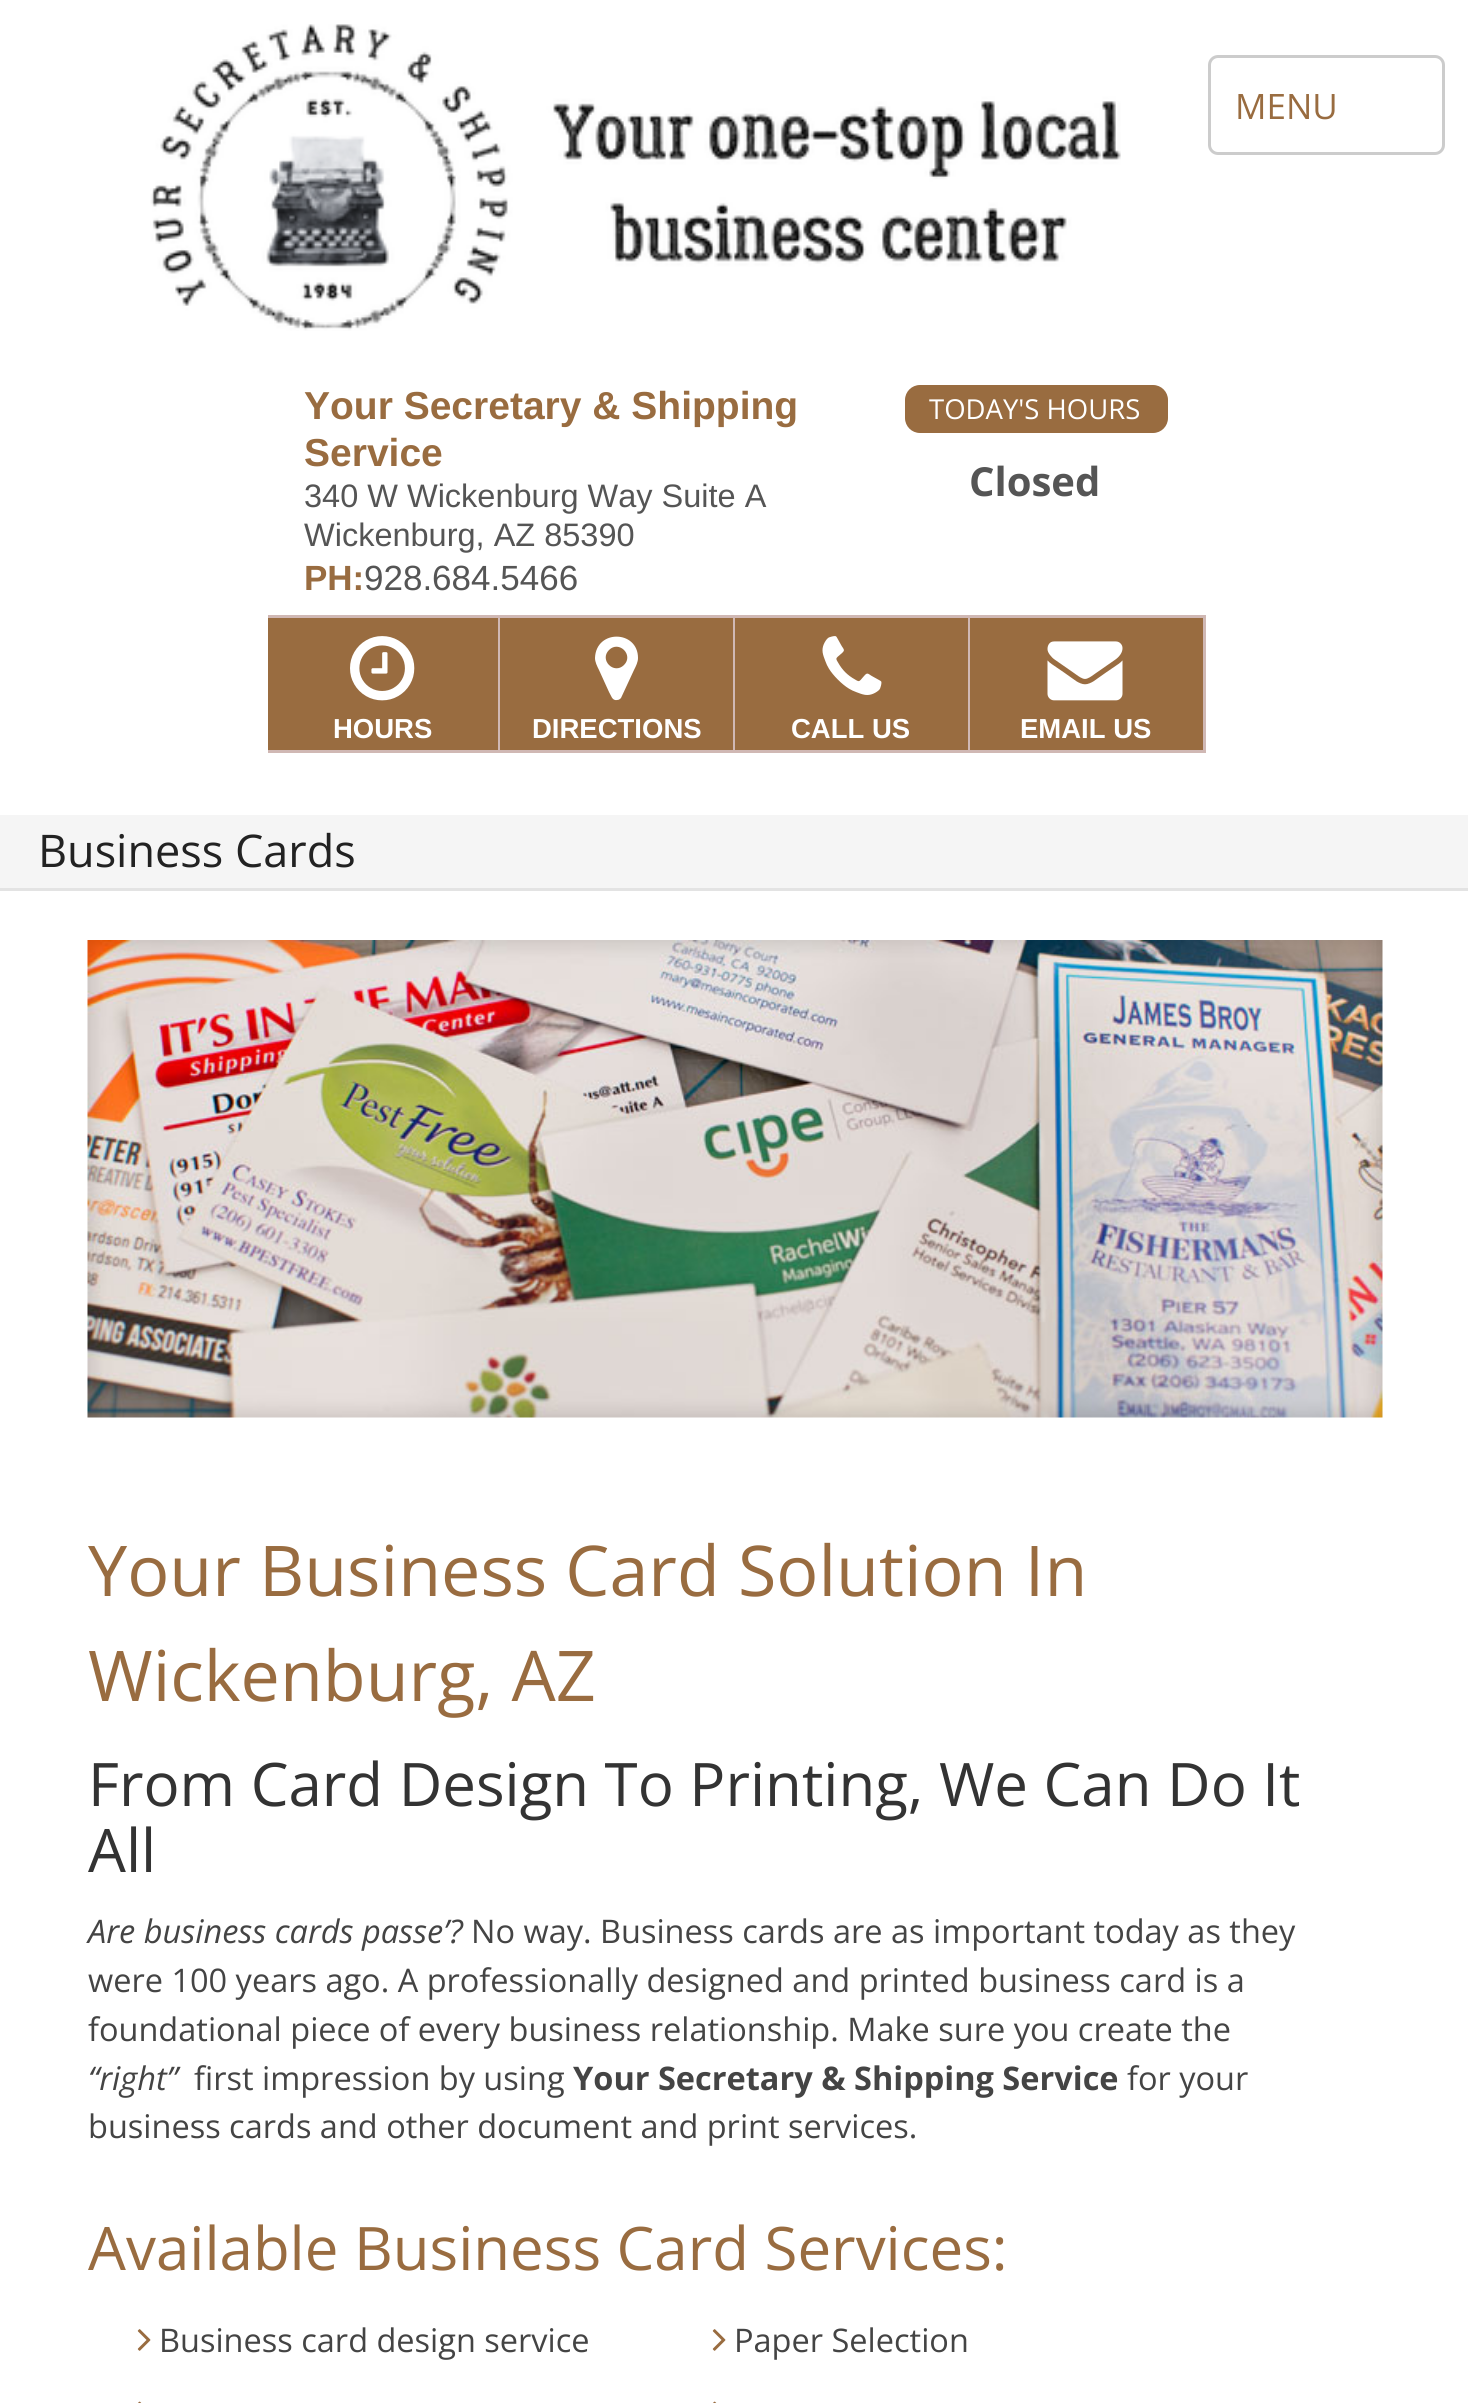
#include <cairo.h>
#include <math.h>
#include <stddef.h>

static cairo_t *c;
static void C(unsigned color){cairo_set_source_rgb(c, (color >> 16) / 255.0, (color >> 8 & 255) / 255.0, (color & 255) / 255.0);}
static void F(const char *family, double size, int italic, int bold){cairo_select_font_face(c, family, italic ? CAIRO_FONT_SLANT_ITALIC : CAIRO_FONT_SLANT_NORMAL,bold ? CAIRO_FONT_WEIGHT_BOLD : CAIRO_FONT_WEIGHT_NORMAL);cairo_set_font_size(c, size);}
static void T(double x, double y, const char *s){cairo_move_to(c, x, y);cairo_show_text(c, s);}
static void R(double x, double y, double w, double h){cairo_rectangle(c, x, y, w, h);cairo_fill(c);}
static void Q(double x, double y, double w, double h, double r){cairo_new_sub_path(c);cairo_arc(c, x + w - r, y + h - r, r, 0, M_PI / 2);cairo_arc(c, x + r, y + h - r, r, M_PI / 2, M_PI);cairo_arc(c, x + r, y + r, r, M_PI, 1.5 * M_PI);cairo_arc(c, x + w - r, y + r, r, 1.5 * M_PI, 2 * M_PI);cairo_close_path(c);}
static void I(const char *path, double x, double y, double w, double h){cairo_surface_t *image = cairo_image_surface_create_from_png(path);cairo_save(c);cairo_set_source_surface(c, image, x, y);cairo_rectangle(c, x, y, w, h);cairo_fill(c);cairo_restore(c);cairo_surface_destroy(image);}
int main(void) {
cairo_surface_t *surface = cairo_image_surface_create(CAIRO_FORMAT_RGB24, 1468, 2403);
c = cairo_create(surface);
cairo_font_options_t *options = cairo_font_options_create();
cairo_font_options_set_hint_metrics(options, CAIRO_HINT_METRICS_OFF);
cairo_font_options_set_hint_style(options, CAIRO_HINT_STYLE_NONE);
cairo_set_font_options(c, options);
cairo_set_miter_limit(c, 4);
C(0xffffff);
cairo_paint(c);
I("1.png",150,24,971,307);
Q(1209.5,56.5,234,97,8.5);
C(0xcccccc);
cairo_set_line_width(c,3);
cairo_stroke(c);
F("Open Sans",35,0,0);
C(0x996c40);
T(1235,119,"MENU");
F("Liberation Sans",39,0,1);
T(304,419,"Your Secretary & Shipping");
T(304,466,"Service");
F("Liberation Sans",32.5,0,0);
C(0x555555);
T(304,507,"340 W Wickenburg Way Suite A");
T(304,546,"Wickenburg, AZ 85390");
F("Liberation Sans",35,0,1);
C(0x996c40);
T(304,590,"PH:");
F("Liberation Sans",35,0,0);
C(0x555555);
T(364,590,"928.684.5466");
C(0x996c40);
Q(905,385,263,48,15);
cairo_fill(c);
F("Open Sans",27.5,0,0);
C(0xffffff);
T(929,419,"TODAY'S HOURS");
F("Open Sans",40,0,1);
C(0x555555);
T(969,496,"Closed");
C(0x996c40);
R(268,618,230,132);
C(0xd0b8b4);
R(268,615,937,3);
R(498,615,2,138);
R(268,750,232,3);
I("2.png",350,636,65,65);
F("Liberation Sans",27.5,0,1);
C(0xffffff);
T(333,738,"HOURS");
C(0x996c40);
R(500,618,233,132);
C(0xd0b8b4);
R(733,615,2,138);
R(500,750,235,3);
C(0xffffff);
cairo_new_path(c);
cairo_move_to(c,624,665);
cairo_curve_to(c,634,655,619,640,609,650);
cairo_curve_to(c,599,660,614,675,624,665);
cairo_close_path(c);
cairo_move_to(c,638,658);
cairo_curve_to(c,638,662,636,666,634,670);
cairo_line_to(c,621,698);
cairo_curve_to(c,620,699,619,700,617,700);
cairo_curve_to(c,612,701,611,695,609,692);
cairo_line_to(c,599,670);
cairo_curve_to(c,597,666,595,662,595,658);
cairo_curve_to(c,596,629,638,630,638,658);
cairo_close_path(c);
cairo_fill(c);
T(532,738,"DIRECTIONS");
C(0x996c40);
R(735,618,233,132);
C(0xd0b8b4);
R(968,615,2,138);
R(735,750,235,3);
I("3.png",822,636,60,59);
C(0xffffff);
T(791,738,"CALL US");
C(0x996c40);
R(970,618,233,132);
C(0xd0b8b4);
R(1203,615,3,138);
R(970,750,235,3);
I("4.png",1047,641,76,60);
C(0xffffff);
T(1020,738,"EMAIL US");
C(0xf5f5f5);
R(0,815,1468,73);
C(0xe3e3e3);
R(0,888,1468,3);
F("Open Sans",45,0,0);
C(0x222222);
T(38,867,"Business Cards");
I("5.png",87,940,1296,478);
F("Open Sans",70,0,0);
C(0x996c40);
T(88,1596,"Your Business Card Solution In");
T(88,1701,"Wickenburg, AZ");
F("Open Sans",60,0,0);
C(0x333333);
T(88,1806,"From Card Design To Printing, We Can Do It");
T(88,1872,"All");
F("Open Sans",32.5,1,0);
C(0x444444);
T(88,1943,"Are business cards passe’?");
F("Open Sans",32.5,0,0);
T(471,1943,"No way. Business cards are as important today as they");
T(88,1992,"were 100 years ago. A professionally designed and printed business card is a");
T(88,2041,"foundational piece of every business relationship. Make sure you create the");
F("Open Sans",32.5,1,0);
T(88,2090,"“right”");
F("Open Sans",32.5,0,0);
T(194,2090,"first impression by using");
F("Open Sans",32.5,0,1);
T(573,2090,"Your Secretary & Shipping Service");
F("Open Sans",32.5,0,0);
T(1127,2090,"for your");
T(88,2138,"business cards and other document and print services.");
F("Open Sans",60,0,0);
C(0x996c40);
T(88,2270,"Available Business Card Services:");
I("6.png",137,2329,14,22);
F("Open Sans",32.5,0,0);
C(0x444444);
T(159,2352,"Business card design service");
I("6.png",712,2329,14,22);
T(734,2352,"Paper Selection");
I("7.png",138,2401,4,2);
I("7.png",713,2401,4,2);
cairo_surface_write_to_png(surface, "o.png");
cairo_font_options_destroy(options);
cairo_destroy(c);
cairo_surface_destroy(surface);
return 0;
}
